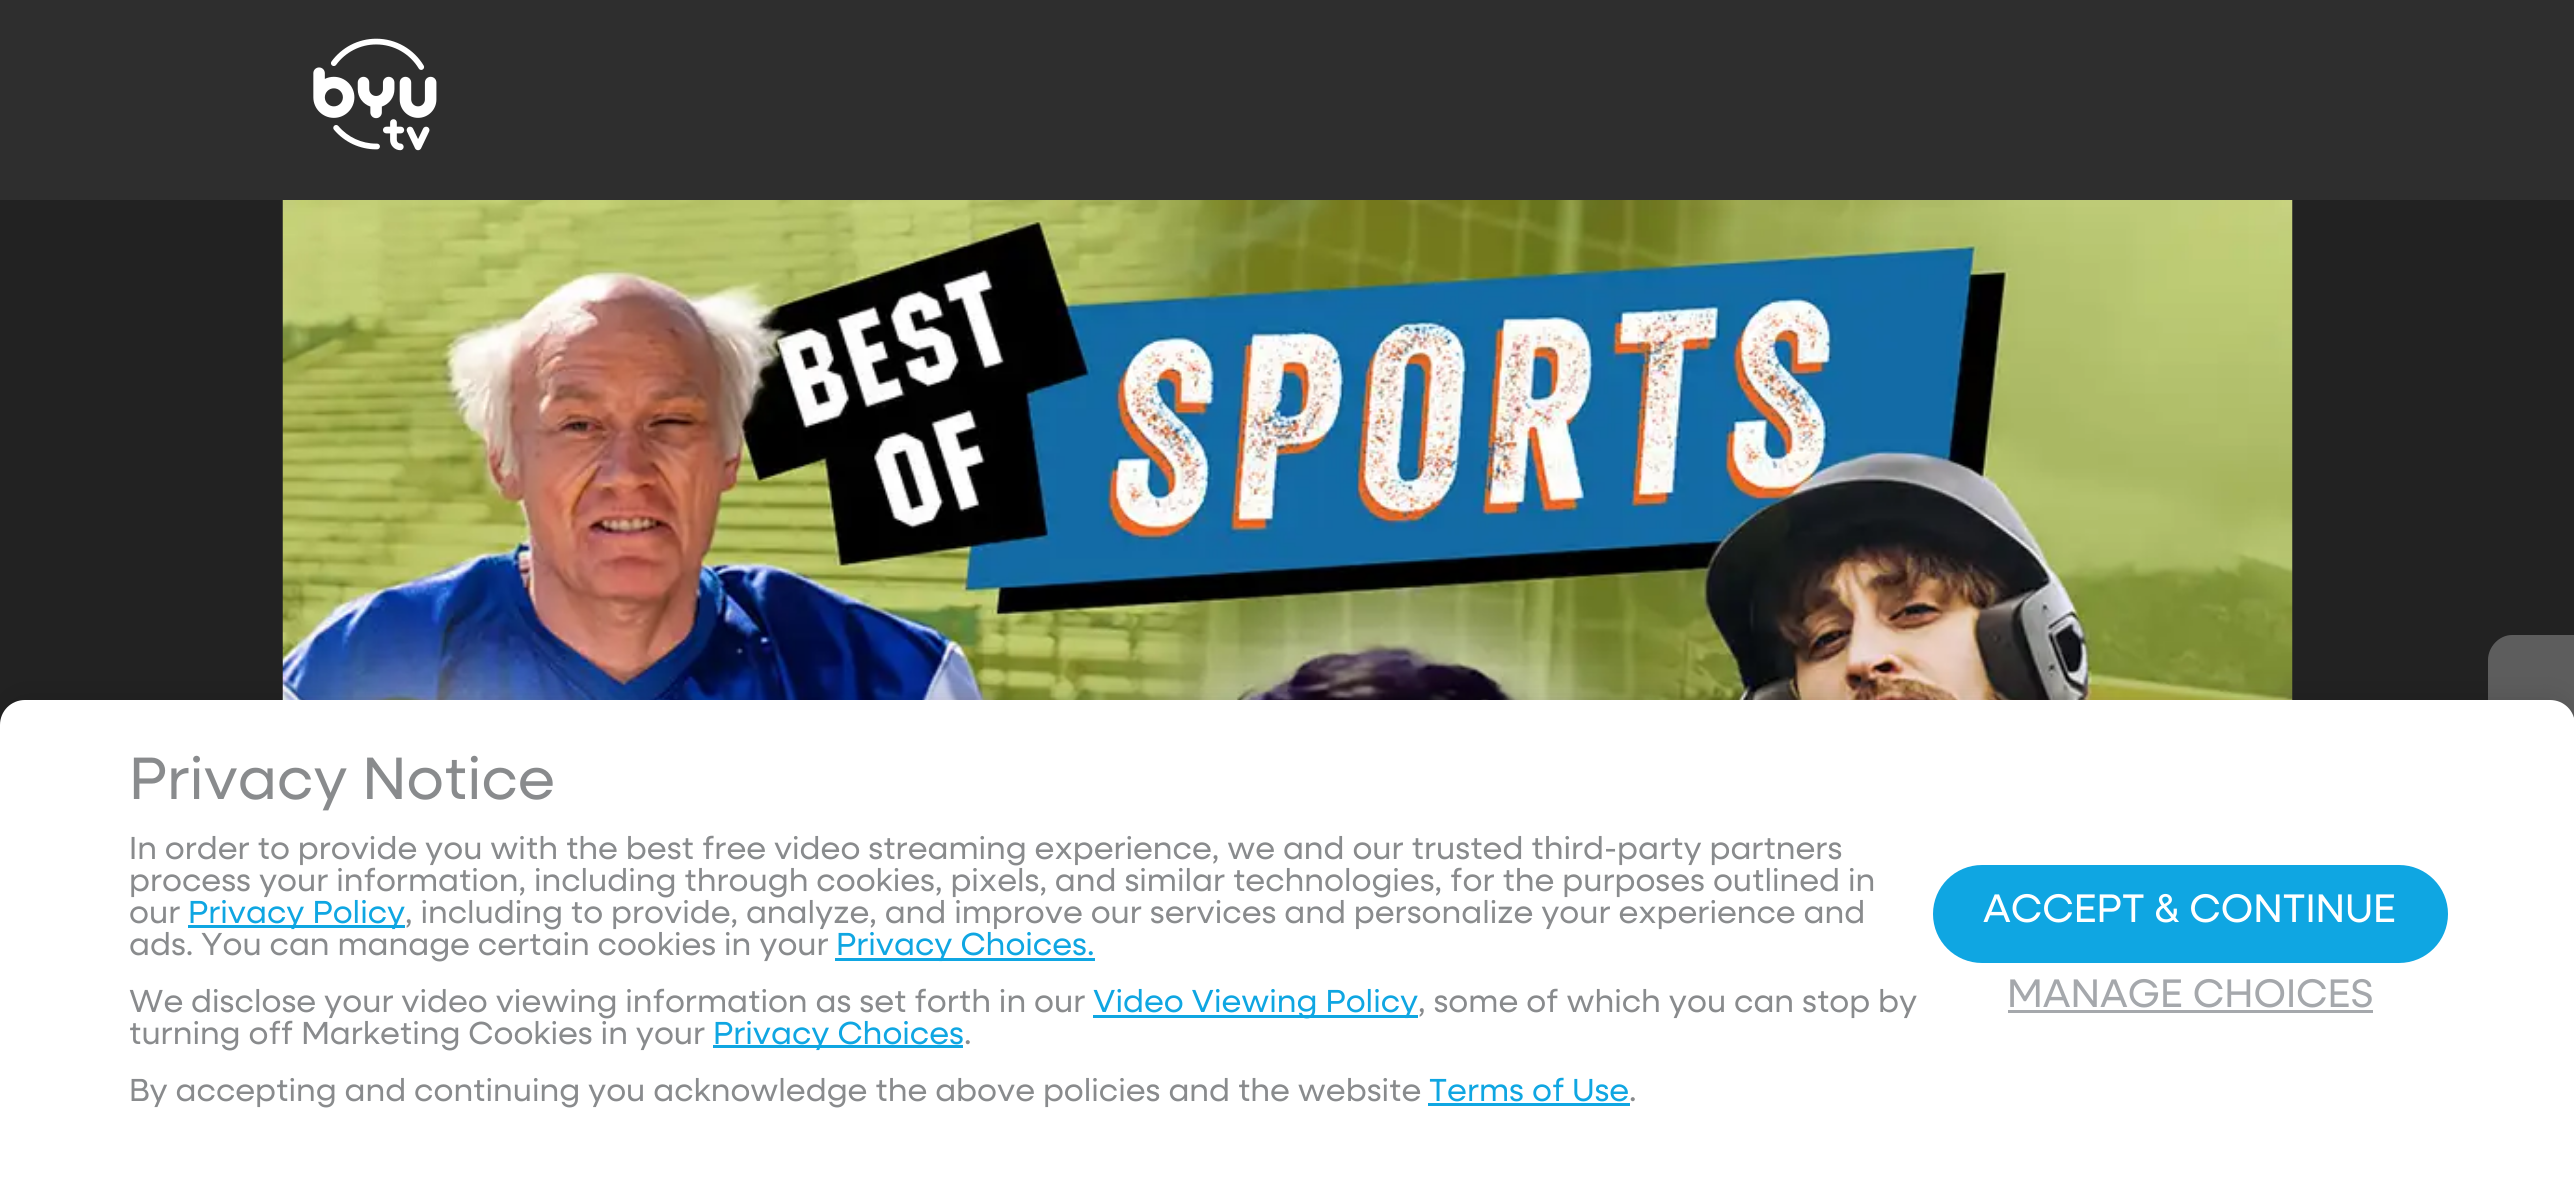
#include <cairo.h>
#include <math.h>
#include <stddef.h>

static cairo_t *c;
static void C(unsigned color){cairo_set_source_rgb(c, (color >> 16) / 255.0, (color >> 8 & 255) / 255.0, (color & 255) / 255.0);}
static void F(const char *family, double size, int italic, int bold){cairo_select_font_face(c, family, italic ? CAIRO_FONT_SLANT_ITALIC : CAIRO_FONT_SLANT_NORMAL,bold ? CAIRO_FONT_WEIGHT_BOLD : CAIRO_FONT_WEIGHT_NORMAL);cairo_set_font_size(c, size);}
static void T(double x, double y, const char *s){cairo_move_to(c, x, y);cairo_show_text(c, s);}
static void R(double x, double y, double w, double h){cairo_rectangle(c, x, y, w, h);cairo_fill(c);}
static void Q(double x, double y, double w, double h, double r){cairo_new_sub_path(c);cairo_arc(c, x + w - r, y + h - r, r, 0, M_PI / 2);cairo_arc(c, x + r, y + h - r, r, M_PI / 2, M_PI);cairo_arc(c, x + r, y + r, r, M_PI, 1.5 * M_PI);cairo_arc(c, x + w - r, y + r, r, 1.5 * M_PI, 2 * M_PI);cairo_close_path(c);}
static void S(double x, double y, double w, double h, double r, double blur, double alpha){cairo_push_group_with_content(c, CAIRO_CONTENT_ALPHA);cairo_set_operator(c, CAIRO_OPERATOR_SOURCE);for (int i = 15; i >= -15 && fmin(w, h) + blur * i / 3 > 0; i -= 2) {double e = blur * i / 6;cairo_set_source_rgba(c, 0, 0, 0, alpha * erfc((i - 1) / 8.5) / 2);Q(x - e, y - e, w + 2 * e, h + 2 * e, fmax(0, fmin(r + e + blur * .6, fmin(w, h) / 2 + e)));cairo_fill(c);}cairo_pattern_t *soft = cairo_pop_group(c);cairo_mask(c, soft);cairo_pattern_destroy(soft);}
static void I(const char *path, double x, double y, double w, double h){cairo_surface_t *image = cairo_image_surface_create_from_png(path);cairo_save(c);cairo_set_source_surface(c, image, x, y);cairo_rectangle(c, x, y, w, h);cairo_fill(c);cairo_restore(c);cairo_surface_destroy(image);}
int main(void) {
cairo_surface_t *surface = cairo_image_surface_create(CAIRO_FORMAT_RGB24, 2574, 1184);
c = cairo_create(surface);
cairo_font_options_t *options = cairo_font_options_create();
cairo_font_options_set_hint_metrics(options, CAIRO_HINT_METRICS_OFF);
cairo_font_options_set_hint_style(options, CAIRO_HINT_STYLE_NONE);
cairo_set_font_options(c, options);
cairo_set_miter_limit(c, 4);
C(0x222222);
cairo_paint(c);
C(0x2e2e2e);
R(0,0,2574,200);
I("1.png",313,38,124,113);
I("2.png",282,200,2011,500);
C(0x5d5d5d);
cairo_new_path(c);
cairo_move_to(c,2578,1007);
cairo_line_to(c,2512,1007);
cairo_curve_to(c,2499,1007,2488,996,2488,982);
cairo_line_to(c,2488,660);
cairo_curve_to(c,2488,647,2499,635,2512,635);
cairo_line_to(c,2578,635);
cairo_close_path(c);
cairo_fill(c);
C(0x000000);
S(0,695,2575,485,25,12.5,.1);
C(0xffffff);
cairo_new_path(c);
cairo_move_to(c,25,700);
cairo_line_to(c,2550,700);
cairo_curve_to(c,2564,700,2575,711,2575,725);
cairo_line_to(c,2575,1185);
cairo_line_to(c,0,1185);
cairo_line_to(c,0,725);
cairo_curve_to(c,0,711,11,700,25,700);
cairo_close_path(c);
cairo_fill(c);
F("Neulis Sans",60,0,0);
C(0x898b8d);
T(129,799,"Privacy Notice");
F("Neulis Sans",32,0,0);
T(129,859,"In order to provide you with the best free video streaming experience, we and our trusted third-party partners");
T(129,891,"process your information, including through cookies, pixels, and similar technologies, for the purposes outlined in");
T(129,923,"our");
C(0x0fa6e2);
R(188,925,217,3);
T(188,923,"Privacy Policy");
C(0x898b8d);
T(405,923,", including to provide, analyze, and improve our services and personalize your experience and");
T(129,955,"ads. You can manage certain cookies in your");
C(0x0fa6e2);
R(835,958,260,3);
T(836,955,"Privacy Choices.");
C(0x898b8d);
T(129,1012,"We disclose your video viewing information as set forth in our");
C(0x0fa6e2);
R(1093,1015,325,3);
T(1093,1012,"Video Viewing Policy");
C(0x898b8d);
T(1418,1012,", some of which you can stop by");
T(129,1044,"turning off Marketing Cookies in your");
C(0x0fa6e2);
R(713,1045,250,3);
T(713,1044,"Privacy Choices");
C(0x898b8d);
T(964,1044,".");
T(129,1101,"By accepting and continuing you acknowledge the above policies and the website");
C(0x0fa6e2);
T(1429,1101,"Terms of Use");
R(1428,1103,202,3);
C(0x898b8d);
T(1629,1101,".");
C(0x0fa6e2);
Q(1933,865,515,98,49);
cairo_fill(c);
F("Neulis Sans",40,0,0);
C(0xffffff);
T(1983,922,"ACCEPT & CONTINUE");
C(0xa5a8ac);
T(2007,1007,"MANAGE CHOICES");
R(2008,1010,365,3);
cairo_surface_write_to_png(surface, "o.png");
cairo_font_options_destroy(options);
cairo_destroy(c);
cairo_surface_destroy(surface);
return 0;
}
